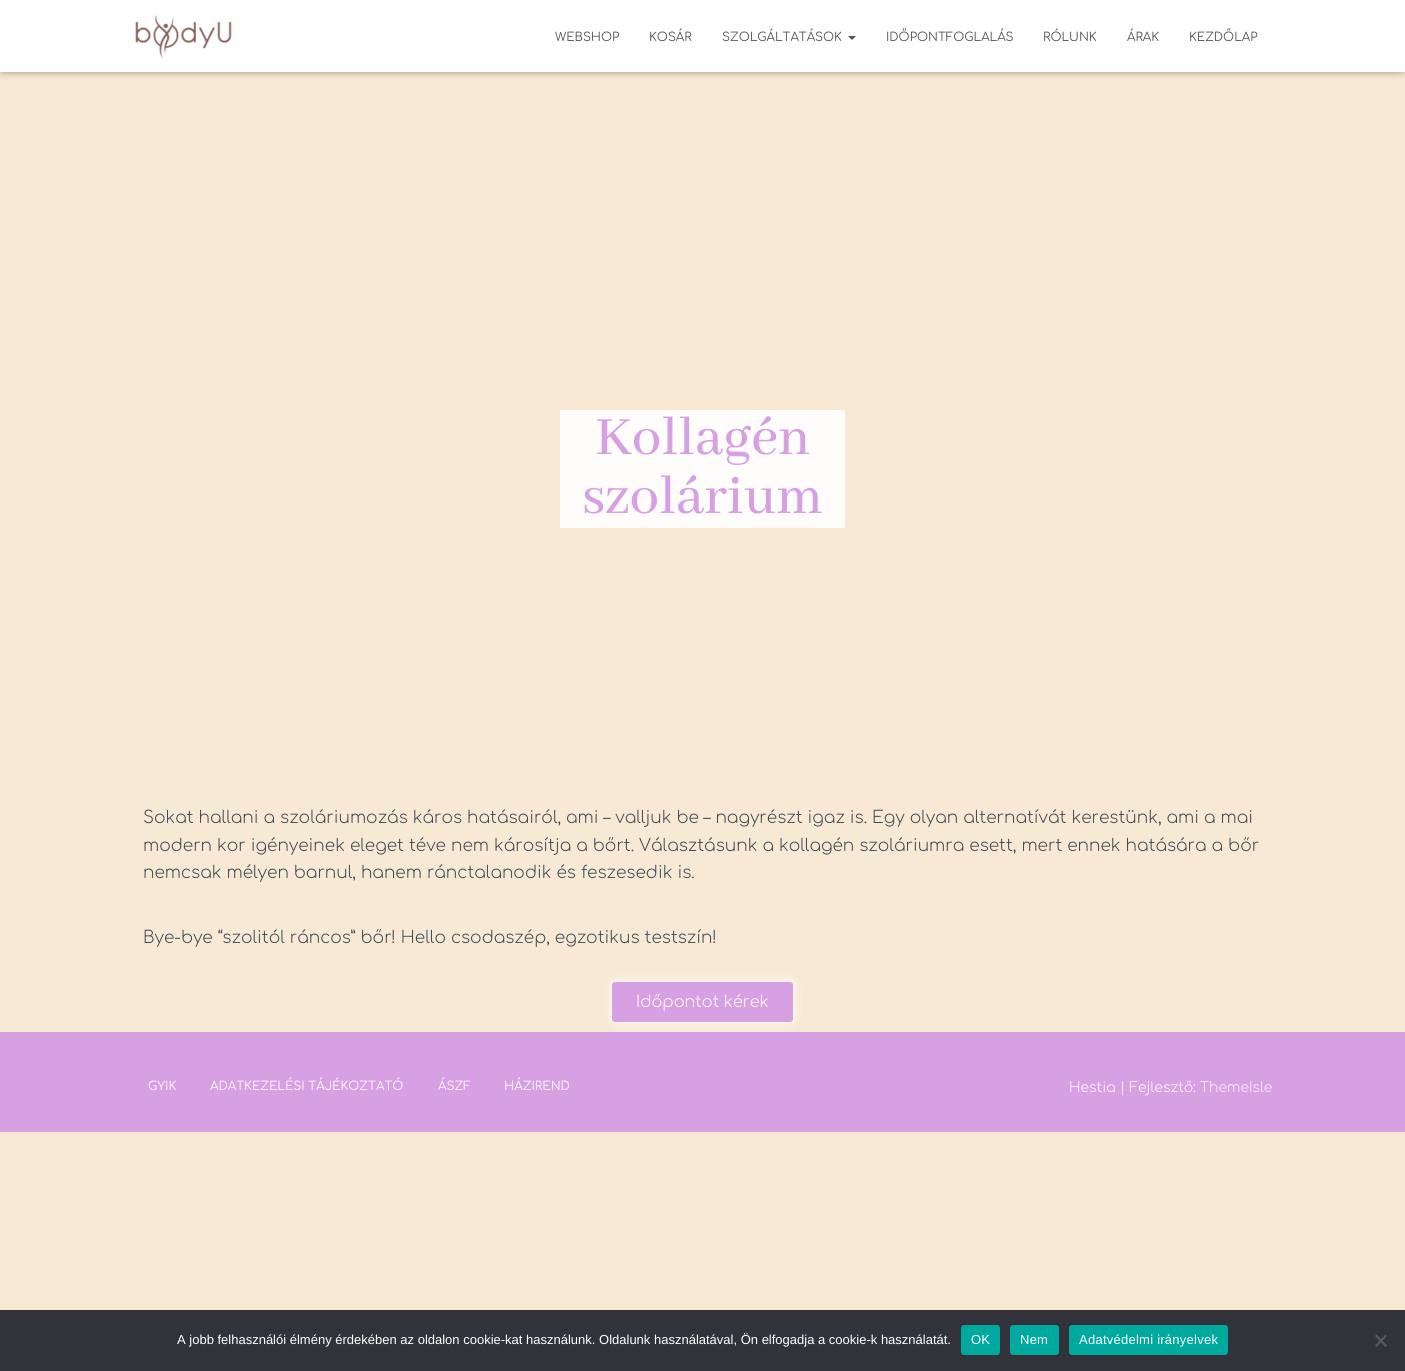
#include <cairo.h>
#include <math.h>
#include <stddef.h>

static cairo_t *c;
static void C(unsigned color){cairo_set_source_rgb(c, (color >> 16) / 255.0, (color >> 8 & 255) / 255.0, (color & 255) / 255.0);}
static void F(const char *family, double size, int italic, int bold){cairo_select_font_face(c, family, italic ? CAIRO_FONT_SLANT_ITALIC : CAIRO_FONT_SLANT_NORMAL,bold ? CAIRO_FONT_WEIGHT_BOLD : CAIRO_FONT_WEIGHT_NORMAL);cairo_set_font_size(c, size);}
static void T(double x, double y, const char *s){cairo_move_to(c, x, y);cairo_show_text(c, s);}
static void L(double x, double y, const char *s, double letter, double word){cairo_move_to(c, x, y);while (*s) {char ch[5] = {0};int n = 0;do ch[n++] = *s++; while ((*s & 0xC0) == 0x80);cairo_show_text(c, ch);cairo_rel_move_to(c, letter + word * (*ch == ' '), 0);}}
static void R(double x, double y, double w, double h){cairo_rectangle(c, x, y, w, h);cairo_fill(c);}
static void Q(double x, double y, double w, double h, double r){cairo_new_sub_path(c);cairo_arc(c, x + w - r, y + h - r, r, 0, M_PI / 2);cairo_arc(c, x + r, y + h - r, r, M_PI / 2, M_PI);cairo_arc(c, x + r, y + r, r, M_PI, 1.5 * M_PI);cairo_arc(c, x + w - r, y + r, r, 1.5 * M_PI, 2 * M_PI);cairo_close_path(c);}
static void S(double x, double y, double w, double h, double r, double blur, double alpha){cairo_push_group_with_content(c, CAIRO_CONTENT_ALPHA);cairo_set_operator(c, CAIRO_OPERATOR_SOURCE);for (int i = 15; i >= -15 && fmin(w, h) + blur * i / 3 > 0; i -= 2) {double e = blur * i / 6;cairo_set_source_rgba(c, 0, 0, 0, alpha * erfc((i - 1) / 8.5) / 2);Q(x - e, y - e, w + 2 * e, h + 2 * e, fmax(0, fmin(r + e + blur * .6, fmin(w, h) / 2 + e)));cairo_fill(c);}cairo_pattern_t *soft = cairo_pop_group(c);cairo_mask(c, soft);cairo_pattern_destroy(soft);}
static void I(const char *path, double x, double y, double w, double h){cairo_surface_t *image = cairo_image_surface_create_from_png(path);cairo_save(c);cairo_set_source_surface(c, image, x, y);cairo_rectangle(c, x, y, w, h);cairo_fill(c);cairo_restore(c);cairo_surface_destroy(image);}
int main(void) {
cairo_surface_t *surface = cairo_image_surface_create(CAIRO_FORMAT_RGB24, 1405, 1371);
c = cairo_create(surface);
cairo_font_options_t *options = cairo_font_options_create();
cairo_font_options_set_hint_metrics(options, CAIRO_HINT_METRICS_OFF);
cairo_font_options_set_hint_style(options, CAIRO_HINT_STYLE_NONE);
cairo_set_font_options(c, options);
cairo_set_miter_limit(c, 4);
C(0xf7e9d4);
cairo_paint(c);
C(0x000000);
S(2,6,1401,68,0,2.5,.1);
S(0,1,1405,72,0,5,.12);
S(6,7,1393,60,0,5,.42);
C(0xffffff);
R(0,0,1405,72);
I("1.png",135,14,97,45);
F("Comfortaa",12,0,0);
C(0x555555);
T(555,41,"WEBSHOP");
T(649,41,"KOSÁR");
T(722,41,"SZOLGÁLTATÁSOK");
cairo_new_path(c);
cairo_move_to(c,848,36);
cairo_line_to(c,856,36);
cairo_line_to(c,852,40);
cairo_close_path(c);
cairo_fill(c);
T(886,41,"IDŐPONTFOGLALÁS");
T(1043,41,"RÓLUNK");
T(1127,41,"ÁRAK");
T(1189,41,"KEZDŐLAP");
C(0xfefdfc);
R(560,410,285,118);
F("Abhaya Libre Medium Medium",59,0,0);
C(0xd6a0e2);
T(595,454,"Kollagén");
T(582,513,"szolárium");
F("Comfortaa Light",17,0,0);
C(0x3c4858);
T(143,823,"Sokat hallani a szoláriumozás káros hatásairól, ami – valljuk be – nagyrészt igaz is. Egy olyan alternatívát kerestünk, ami a mai");
T(143,851,"modern kor igényeinek eleget téve nem károsítja a bőrt. Választásunk a kollagén szoláriumra esett, mert ennek hatására a bőr");
T(143,878,"nemcsak mélyen barnul, hanem ránctalanodik és feszesedik is.");
T(143,943,"Bye-bye “szolitól ráncos” bőr! Hello csodaszép, egzotikus testszín!");
C(0xd6a0e2);
R(0,1032,1405,100);
C(0xffffff);
S(612,982,181,40,3,5,1);
C(0xd6a0e2);
Q(612,982,181,40,3);
cairo_fill(c);
F("Comfortaa Light",16,0,0);
C(0xffffff);
T(636,1007,"Időpontot kérek");
F("Comfortaa Medium",12,0,0);
C(0xf9f2fb);
T(148,1090,"GYIK");
T(210,1090,"ADATKEZELÉSI TÁJÉKOZTATÓ");
T(438,1090,"ÁSZF");
T(504,1090,"HÁZIREND");
F("Comfortaa Light",14,0,0);
C(0xffffff);
T(1069,1092,"Hestia | Fejlesztő:");
C(0xf9f2fb);
T(1200,1092,"ThemeIsle");
C(0x32323a);
R(0,1310,1405,61);
F("Liberation Sans",13,0,0);
C(0xffffff);
T(177,1344,"A jobb felhasználói élmény érdekében az oldalon cookie-kat használunk. Oldalunk használatával, Ön elfogadja a cookie-k használatát.");
C(0x00a99d);
Q(961,1325,39,30,3);
cairo_fill(c);
C(0xffffff);
L(971,1344,"OK",.25,0);
C(0x00a99d);
Q(1010,1325,49,30,3);
cairo_fill(c);
C(0xffffff);
L(1020,1344,"Nem",.25,0);
C(0x00a99d);
Q(1069,1325,159,30,3);
cairo_fill(c);
C(0xffffff);
L(1079,1344,"Adatvédelmi irányelvek",.25,0);
C(0x59595d);
cairo_new_path(c);
cairo_move_to(c,1385.5,1334.5);
cairo_line_to(c,1387,1336);
cairo_line_to(c,1376.5,1347);
cairo_line_to(c,1375,1345.5);
cairo_close_path(c);
cairo_fill(c);
cairo_new_path(c);
cairo_move_to(c,1375,1336);
cairo_line_to(c,1376.5,1334.5);
cairo_line_to(c,1387,1345.5);
cairo_line_to(c,1385.5,1347);
cairo_close_path(c);
cairo_fill(c);
cairo_surface_write_to_png(surface, "o.png");
cairo_font_options_destroy(options);
cairo_destroy(c);
cairo_surface_destroy(surface);
return 0;
}
